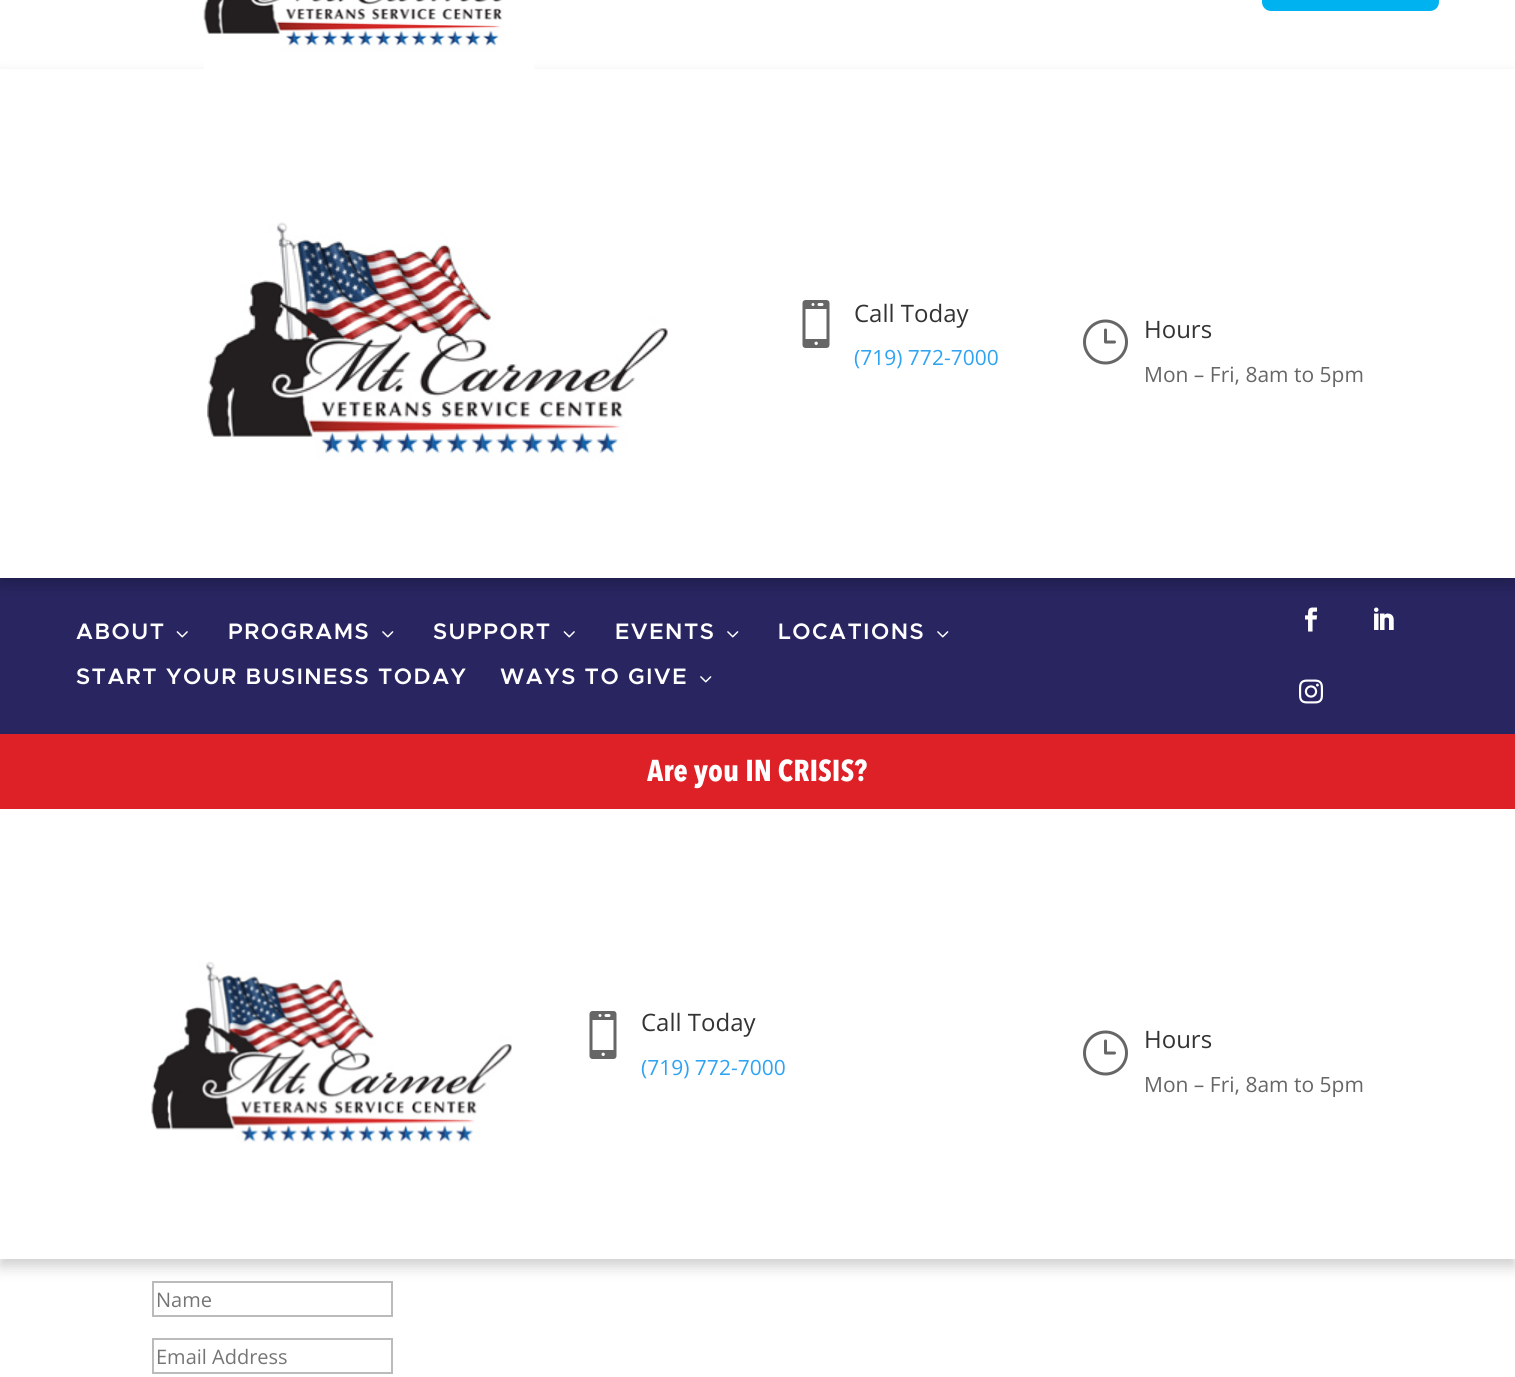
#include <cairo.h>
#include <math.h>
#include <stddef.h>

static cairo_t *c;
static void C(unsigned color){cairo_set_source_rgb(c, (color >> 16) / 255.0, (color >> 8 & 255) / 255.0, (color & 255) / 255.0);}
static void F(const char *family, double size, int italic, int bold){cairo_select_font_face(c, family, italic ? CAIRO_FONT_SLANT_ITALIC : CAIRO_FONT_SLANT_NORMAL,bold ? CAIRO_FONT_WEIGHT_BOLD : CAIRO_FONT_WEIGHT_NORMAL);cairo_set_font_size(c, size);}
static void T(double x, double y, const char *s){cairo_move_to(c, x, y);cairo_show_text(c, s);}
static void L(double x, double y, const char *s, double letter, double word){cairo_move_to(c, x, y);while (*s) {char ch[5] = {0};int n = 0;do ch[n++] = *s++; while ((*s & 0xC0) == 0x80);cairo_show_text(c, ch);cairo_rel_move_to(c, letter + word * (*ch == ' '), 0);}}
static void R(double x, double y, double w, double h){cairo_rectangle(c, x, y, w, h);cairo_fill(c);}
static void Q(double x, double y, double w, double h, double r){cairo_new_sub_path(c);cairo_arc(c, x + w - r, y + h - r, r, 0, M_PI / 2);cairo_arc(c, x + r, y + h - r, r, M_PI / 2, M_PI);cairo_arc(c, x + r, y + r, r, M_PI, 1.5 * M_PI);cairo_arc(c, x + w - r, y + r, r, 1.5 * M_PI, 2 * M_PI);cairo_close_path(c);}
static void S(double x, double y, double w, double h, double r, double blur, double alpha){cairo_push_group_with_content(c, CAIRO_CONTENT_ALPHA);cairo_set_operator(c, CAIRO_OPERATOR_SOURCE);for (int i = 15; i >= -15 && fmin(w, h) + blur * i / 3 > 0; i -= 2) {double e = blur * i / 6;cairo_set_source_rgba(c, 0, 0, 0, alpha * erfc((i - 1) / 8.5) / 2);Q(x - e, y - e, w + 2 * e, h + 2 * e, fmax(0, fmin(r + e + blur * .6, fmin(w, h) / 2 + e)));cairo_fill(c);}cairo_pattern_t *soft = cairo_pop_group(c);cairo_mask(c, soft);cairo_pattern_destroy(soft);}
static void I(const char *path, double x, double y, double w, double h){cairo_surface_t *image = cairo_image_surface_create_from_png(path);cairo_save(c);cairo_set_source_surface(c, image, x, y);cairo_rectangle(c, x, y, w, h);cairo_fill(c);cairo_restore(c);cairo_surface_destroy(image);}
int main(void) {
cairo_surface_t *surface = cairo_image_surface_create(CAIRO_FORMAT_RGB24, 1515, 1377);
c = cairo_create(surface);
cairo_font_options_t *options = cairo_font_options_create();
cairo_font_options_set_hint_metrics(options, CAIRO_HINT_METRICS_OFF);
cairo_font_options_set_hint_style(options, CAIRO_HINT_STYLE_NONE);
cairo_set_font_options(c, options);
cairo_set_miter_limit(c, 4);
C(0xffffff);
cairo_paint(c);
C(0x282561);
R(0,578,1515,156);
C(0x000000);
S(0,77,1515,508,0,7.5,.2);
I("1.png",203,0,331,69);
C(0x00b3f0);
Q(1262,-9,177,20,9);
cairo_fill(c);
C(0xffffff);
R(0,69,1515,509);
I("2.png",207,222,461,238);
I("3.png",802,300,28,48);
F("Open Sans",24,0,0);
C(0x333333);
T(854,322,"Call Today");
F("Open Sans",21,0,0);
C(0x2ea3f2);
T(854,365,"(719) 772-7000");
I("4.png",1083,319,45,46);
F("Open Sans",24,0,0);
C(0x333333);
T(1144,338,"Hours");
F("Open Sans",21,0,0);
C(0x666666);
T(1144,382,"Mon – Fri, 8am to 5pm");
F("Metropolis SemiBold",22.5,0,0);
C(0xffffff);
L(76,639,"ABOUT",1.5,0);
I("5.png",176,631,12,7);
L(228,639,"PROGRAMS",1.5,0);
I("6.png",382,631,12,7);
L(433,639,"SUPPORT",1.5,0);
I("5.png",563,631,12,7);
L(615,639,"EVENTS",1.5,0);
I("6.png",727,631,12,7);
L(778,639,"LOCATIONS",1.5,0);
I("6.png",937,631,12,7);
L(76,684,"START YOUR BUSINESS TODAY",1.5,0);
L(500,684,"WAYS TO GIVE",1.5,0);
I("6.png",700,676,12,7);
I("7.png",1305,607,13,25);
I("8.png",1374,607,20,23);
I("9.png",1299,679,24,25);
cairo_rectangle(c,153,1282,239,34);
C(0xbbbbbb);
cairo_stroke(c);
C(0x000000);
S(0,816,1515,450,0,7.5,.2);
C(0xde2027);
R(0,734,1515,75);
F("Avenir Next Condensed",30,0,1);
C(0xffffff);
T(647,781,"Are you IN CRISIS?");
R(0,809,1515,450);
I("10.png",151,961,361,182);
I("3.png",589,1011,28,48);
F("Open Sans",24,0,0);
C(0x333333);
T(641,1031,"Call Today");
F("Open Sans",21,0,0);
C(0x2ea3f2);
T(641,1075,"(719) 772-7000");
I("4.png",1083,1030,45,46);
F("Open Sans",24,0,0);
C(0x333333);
T(1144,1048,"Hours");
F("Open Sans",21,0,0);
C(0x666666);
T(1144,1092,"Mon – Fri, 8am to 5pm");
F("Open Sans",20,0,0);
C(0x757575);
T(156,1307,"Name");
cairo_rectangle(c,153,1339,239,34);
C(0xbbbbbb);
cairo_stroke(c);
C(0x757575);
T(156,1364,"Email Address");
cairo_surface_write_to_png(surface, "o.png");
cairo_font_options_destroy(options);
cairo_destroy(c);
cairo_surface_destroy(surface);
return 0;
}
